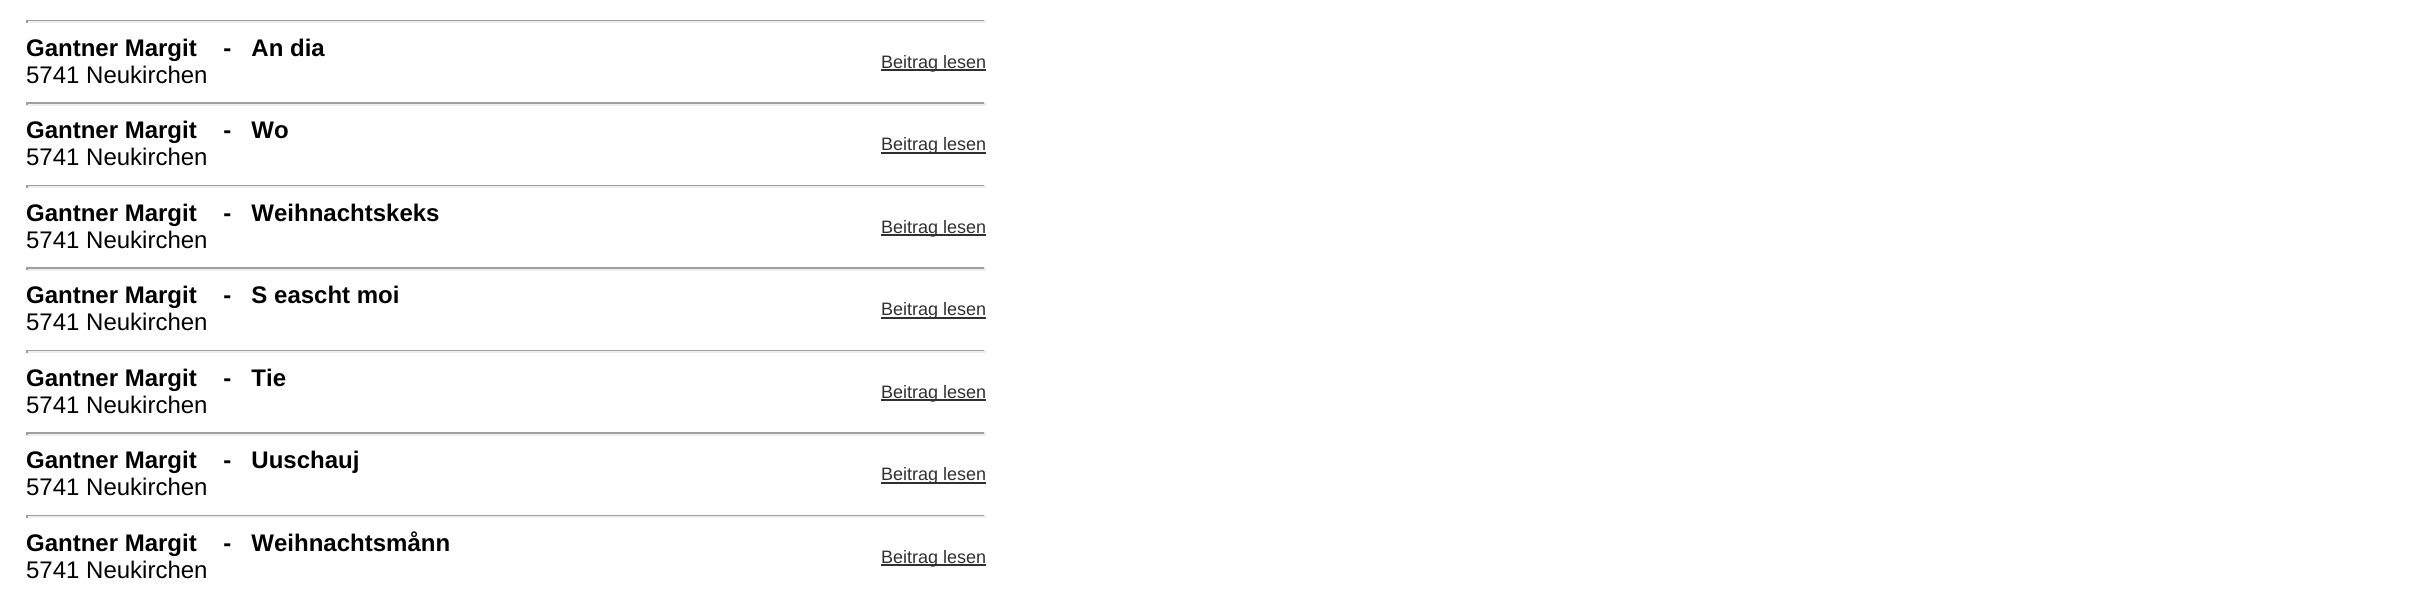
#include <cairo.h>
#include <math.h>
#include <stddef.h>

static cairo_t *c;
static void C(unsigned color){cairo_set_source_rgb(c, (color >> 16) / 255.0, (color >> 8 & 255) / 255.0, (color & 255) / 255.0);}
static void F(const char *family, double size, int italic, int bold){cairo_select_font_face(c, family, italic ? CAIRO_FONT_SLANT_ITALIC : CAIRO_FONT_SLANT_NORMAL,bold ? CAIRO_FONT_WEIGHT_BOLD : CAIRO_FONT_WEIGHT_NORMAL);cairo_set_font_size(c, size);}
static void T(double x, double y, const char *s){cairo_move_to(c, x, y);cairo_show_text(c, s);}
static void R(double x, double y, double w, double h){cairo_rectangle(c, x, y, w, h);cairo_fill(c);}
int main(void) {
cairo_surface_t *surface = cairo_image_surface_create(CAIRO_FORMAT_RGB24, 2426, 589);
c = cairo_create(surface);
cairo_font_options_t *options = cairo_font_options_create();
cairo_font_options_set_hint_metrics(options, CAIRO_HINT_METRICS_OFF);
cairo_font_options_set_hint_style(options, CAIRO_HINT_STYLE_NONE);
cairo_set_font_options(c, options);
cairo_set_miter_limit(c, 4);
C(0xffffff);
cairo_paint(c);
C(0x9f9f9f);
R(26,20,960,1);
C(0xeeeeee);
R(984,20,2,3);
R(26,21,960,2);
C(0x9f9f9f);
R(26,20,2,3);
F("Liberation Sans",24,0,1);
C(0x000000);
T(26,56,"Gantner Margit    -   An dia");
F("Liberation Sans",24,0,0);
T(26,83,"5741 Neukirchen");
C(0x303030);
R(881,69,105,2);
F("Liberation Sans",18,0,0);
T(881,68,"Beitrag lesen");
C(0x9f9f9f);
R(26,102,960,2);
C(0xeeeeee);
R(984,102,2,3);
R(26,104,960,2);
C(0x9f9f9f);
R(26,102,2,3);
F("Liberation Sans",24,0,1);
C(0x000000);
T(26,138,"Gantner Margit    -   Wo");
F("Liberation Sans",24,0,0);
T(26,165,"5741 Neukirchen");
C(0x303030);
R(881,152,105,2);
F("Liberation Sans",18,0,0);
T(881,150,"Beitrag lesen");
C(0x9f9f9f);
R(26,185,960,1);
C(0xeeeeee);
R(984,185,2,3);
R(26,186,960,2);
C(0x9f9f9f);
R(26,185,2,3);
F("Liberation Sans",24,0,1);
C(0x000000);
T(26,221,"Gantner Margit    -   Weihnachtskeks");
F("Liberation Sans",24,0,0);
T(26,248,"5741 Neukirchen");
C(0x303030);
R(881,234,105,2);
F("Liberation Sans",18,0,0);
T(881,233,"Beitrag lesen");
C(0x9f9f9f);
R(26,267,960,2);
C(0xeeeeee);
R(984,267,2,3);
R(26,269,960,2);
C(0x9f9f9f);
R(26,267,2,3);
F("Liberation Sans",24,0,1);
C(0x000000);
T(26,303,"Gantner Margit    -   S eascht moi");
F("Liberation Sans",24,0,0);
T(26,330,"5741 Neukirchen");
C(0x303030);
R(881,317,105,2);
F("Liberation Sans",18,0,0);
T(881,315,"Beitrag lesen");
C(0x9f9f9f);
R(26,350,960,1);
C(0xeeeeee);
R(984,350,2,3);
R(26,351,960,2);
C(0x9f9f9f);
R(26,350,2,3);
F("Liberation Sans",24,0,1);
C(0x000000);
T(26,386,"Gantner Margit    -   Tie");
F("Liberation Sans",24,0,0);
T(26,413,"5741 Neukirchen");
C(0x303030);
R(881,399,105,2);
F("Liberation Sans",18,0,0);
T(881,398,"Beitrag lesen");
C(0x9f9f9f);
R(26,432,960,2);
C(0xeeeeee);
R(984,432,2,3);
R(26,434,960,2);
C(0x9f9f9f);
R(26,432,2,3);
F("Liberation Sans",24,0,1);
C(0x000000);
T(26,468,"Gantner Margit    -   Uuschauj");
F("Liberation Sans",24,0,0);
T(26,495,"5741 Neukirchen");
C(0x303030);
R(881,482,105,2);
F("Liberation Sans",18,0,0);
T(881,480,"Beitrag lesen");
C(0x9f9f9f);
R(26,515,960,1);
C(0xeeeeee);
R(984,515,2,3);
R(26,516,960,2);
C(0x9f9f9f);
R(26,515,2,3);
F("Liberation Sans",24,0,1);
C(0x000000);
T(26,551,"Gantner Margit    -   Weihnachtsmånn");
F("Liberation Sans",24,0,0);
T(26,578,"5741 Neukirchen");
C(0x303030);
R(881,564,105,2);
F("Liberation Sans",18,0,0);
T(881,563,"Beitrag lesen");
cairo_surface_write_to_png(surface, "o.png");
cairo_font_options_destroy(options);
cairo_destroy(c);
cairo_surface_destroy(surface);
return 0;
}
